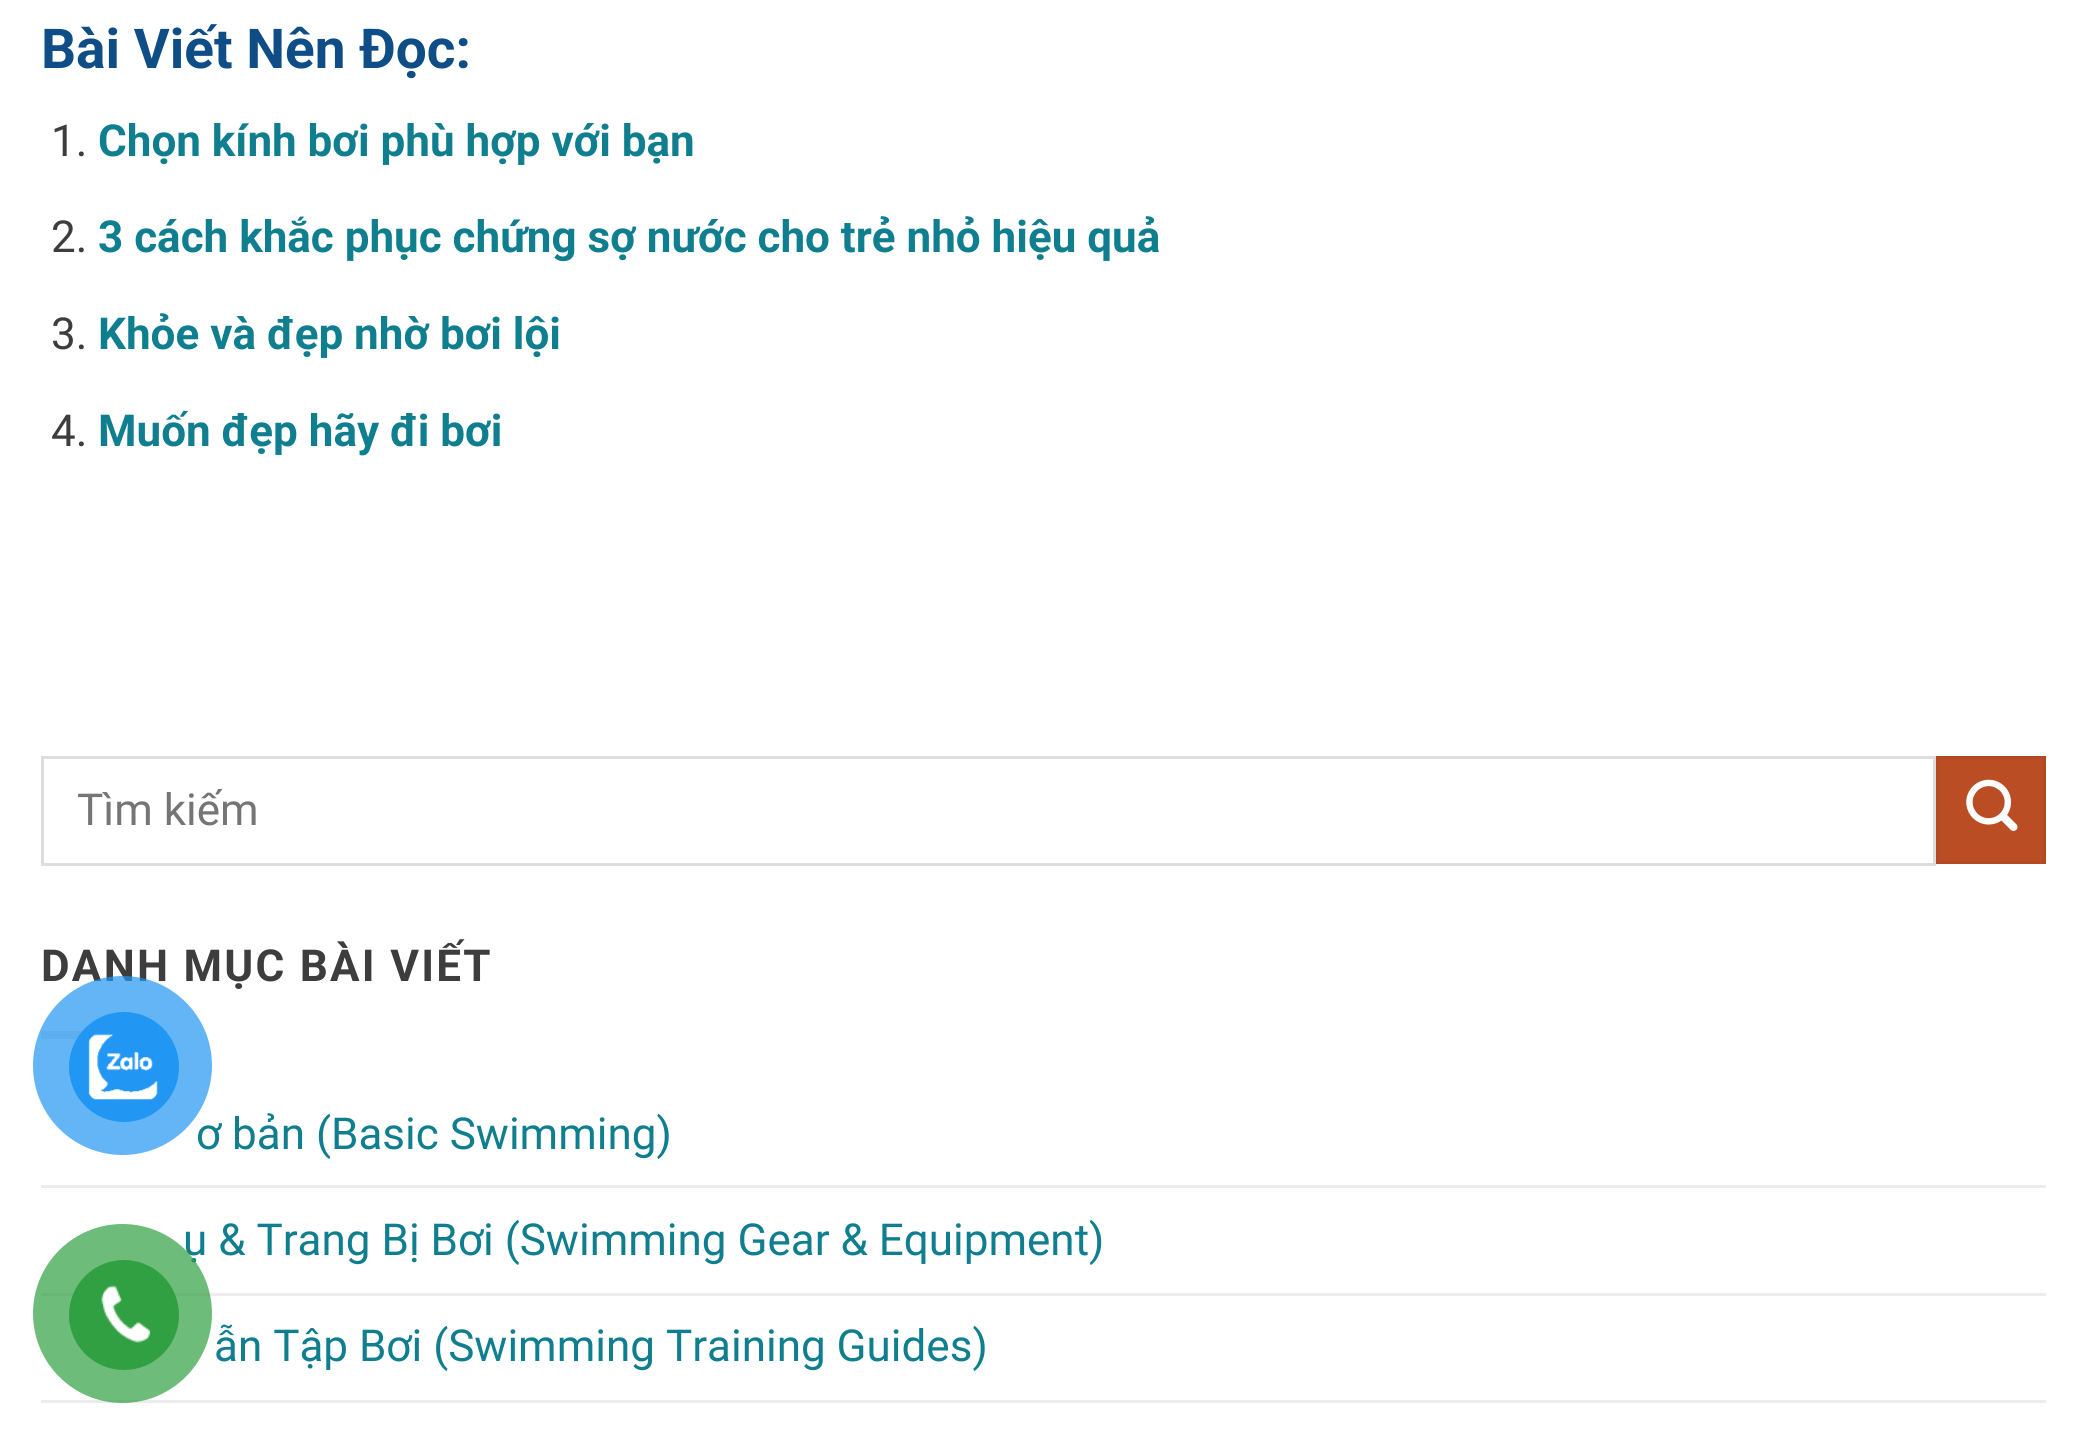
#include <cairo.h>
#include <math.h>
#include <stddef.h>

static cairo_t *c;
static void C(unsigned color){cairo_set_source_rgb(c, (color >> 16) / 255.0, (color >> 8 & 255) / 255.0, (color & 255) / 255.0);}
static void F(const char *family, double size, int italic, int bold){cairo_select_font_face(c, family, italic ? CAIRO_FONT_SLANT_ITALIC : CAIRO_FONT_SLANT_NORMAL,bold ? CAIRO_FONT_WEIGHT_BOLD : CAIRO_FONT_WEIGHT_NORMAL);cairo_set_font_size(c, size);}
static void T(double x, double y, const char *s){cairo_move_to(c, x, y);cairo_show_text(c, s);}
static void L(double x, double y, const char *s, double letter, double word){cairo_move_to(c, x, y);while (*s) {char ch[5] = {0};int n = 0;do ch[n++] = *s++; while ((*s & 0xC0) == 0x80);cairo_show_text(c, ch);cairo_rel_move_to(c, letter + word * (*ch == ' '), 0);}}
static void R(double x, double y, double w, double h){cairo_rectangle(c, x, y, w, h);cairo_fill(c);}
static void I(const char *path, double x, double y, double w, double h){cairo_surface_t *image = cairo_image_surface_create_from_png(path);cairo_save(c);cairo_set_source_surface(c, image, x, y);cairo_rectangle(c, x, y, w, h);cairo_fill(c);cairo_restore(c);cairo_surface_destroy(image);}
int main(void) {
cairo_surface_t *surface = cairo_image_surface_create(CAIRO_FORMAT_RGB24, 2087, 1437);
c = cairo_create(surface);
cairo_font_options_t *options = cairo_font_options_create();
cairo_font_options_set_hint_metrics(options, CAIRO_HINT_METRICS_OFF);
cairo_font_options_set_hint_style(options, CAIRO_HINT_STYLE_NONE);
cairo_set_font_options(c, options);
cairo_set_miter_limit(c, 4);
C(0xffffff);
cairo_paint(c);
F("Roboto",55,0,1);
C(0x0e4d85);
T(41,68,"Bài Viết Nên Đọc:");
F("Roboto",44,0,0);
C(0x3d3d3d);
T(51,156,"1.");
F("Roboto",44,0,1);
C(0x0f7e8f);
T(98,156,"Chọn kính bơi phù hợp với bạn");
F("Roboto",44,0,0);
C(0x3d3d3d);
T(51,252,"2.");
F("Roboto",44,0,1);
C(0x0f7e8f);
T(98,252,"3 cách khắc phục chứng sợ nước cho trẻ nhỏ hiệu quả");
F("Roboto",44,0,0);
C(0x3d3d3d);
T(51,349,"3.");
F("Roboto",44,0,1);
C(0x0f7e8f);
T(98,349,"Khỏe và đẹp nhờ bơi lội");
F("Roboto",44,0,0);
C(0x3d3d3d);
T(51,446,"4.");
F("Roboto",44,0,1);
C(0x0f7e8f);
T(98,446,"Muốn đẹp hãy đi bơi");
cairo_rectangle(c,42.5,757.5,1892,107);
C(0xdddddd);
cairo_set_line_width(c,3);
cairo_stroke(c);
F("Roboto",44,0,0);
C(0x757575);
T(77,825,"Tìm kiếm");
C(0xbb4d25);
cairo_rectangle(c,1937.5,757.5,107,105);
cairo_fill_preserve(c);
C(0xb24923);
cairo_stroke(c);
I("1.png",1966,779,52,52);
F("Roboto",44,0,1);
C(0x3d3d3d);
L(41,981,"DANH MỤC BÀI VIẾT",2.25,0);
C(0xe6e6e6);
R(41,1031,42,8);
F("Roboto",44,0,0);
C(0x0f7e8f);
T(196,1149,"ơ bản (Basic Swimming)");
C(0xececec);
R(41,1185,2005,3);
C(0x0f7e8f);
T(183,1255,"ụ & Trang Bị Bơi (Swimming Gear & Equipment)");
C(0xececec);
R(41,1293,2005,3);
C(0x0f7e8f);
T(214,1361,"ẫn Tập Bơi (Swimming Training Guides)");
C(0xececec);
R(41,1400,2005,3);
cairo_set_source_rgba(c,0.129,0.588,0.953,0.7);
cairo_new_path(c);
cairo_arc(c,122.5,1065.5,89.5,0,2 * M_PI);
cairo_fill(c);
C(0x2196f3);
cairo_arc(c,124,1067,55,0,2 * M_PI);
cairo_fill(c);
I("2.png",88,1034,70,66);
cairo_set_source_rgba(c,0.192,0.627,0.259,0.7);
cairo_arc(c,122.5,1313.5,89.5,0,2 * M_PI);
cairo_fill(c);
C(0x31a042);
cairo_arc(c,124,1315,55,0,2 * M_PI);
cairo_fill(c);
I("3.png",101,1285,50,58);
cairo_surface_write_to_png(surface, "o.png");
cairo_font_options_destroy(options);
cairo_destroy(c);
cairo_surface_destroy(surface);
return 0;
}
